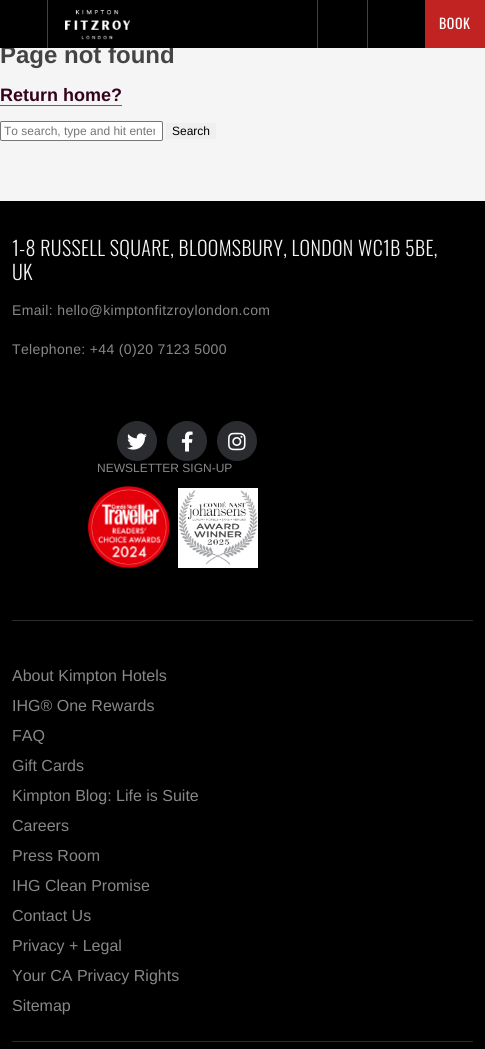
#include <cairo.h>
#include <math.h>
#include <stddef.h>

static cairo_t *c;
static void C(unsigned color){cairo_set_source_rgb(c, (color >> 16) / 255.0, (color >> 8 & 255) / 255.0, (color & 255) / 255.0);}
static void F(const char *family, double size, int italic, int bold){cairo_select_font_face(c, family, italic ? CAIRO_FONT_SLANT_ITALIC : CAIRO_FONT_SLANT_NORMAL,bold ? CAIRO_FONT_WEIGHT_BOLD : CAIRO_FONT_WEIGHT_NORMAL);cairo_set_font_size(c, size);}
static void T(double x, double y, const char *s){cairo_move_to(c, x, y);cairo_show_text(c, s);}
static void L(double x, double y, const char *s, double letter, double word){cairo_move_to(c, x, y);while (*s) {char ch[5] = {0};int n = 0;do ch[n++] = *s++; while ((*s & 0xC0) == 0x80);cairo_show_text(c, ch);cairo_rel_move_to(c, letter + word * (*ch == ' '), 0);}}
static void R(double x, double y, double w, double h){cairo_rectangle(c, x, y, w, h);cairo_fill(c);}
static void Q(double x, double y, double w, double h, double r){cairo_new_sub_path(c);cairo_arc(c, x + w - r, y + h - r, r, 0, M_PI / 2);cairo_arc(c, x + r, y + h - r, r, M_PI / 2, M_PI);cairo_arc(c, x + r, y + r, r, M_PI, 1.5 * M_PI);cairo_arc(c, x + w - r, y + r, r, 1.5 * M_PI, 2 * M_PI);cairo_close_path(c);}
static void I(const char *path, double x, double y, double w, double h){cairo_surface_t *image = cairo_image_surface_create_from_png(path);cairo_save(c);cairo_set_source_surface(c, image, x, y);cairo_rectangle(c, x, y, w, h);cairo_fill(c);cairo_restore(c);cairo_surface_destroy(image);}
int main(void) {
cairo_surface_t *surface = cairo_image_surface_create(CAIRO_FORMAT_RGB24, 485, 1049);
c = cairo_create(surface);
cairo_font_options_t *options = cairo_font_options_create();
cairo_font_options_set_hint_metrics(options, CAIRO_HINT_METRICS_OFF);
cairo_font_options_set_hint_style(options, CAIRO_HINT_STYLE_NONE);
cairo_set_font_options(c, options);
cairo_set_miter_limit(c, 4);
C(0xf5f5f5);
cairo_paint(c);
F("Liberation Sans",24,0,1);
C(0x444444);
T(0,63,"Page not found");
C(0x000000);
R(0,0,425,48);
C(0x414042);
R(47,0,1,48);
I("1.png",65,10,65,30);
R(317,0,1,48);
R(367,0,1,48);
C(0xc12222);
R(425,0,60,48);
F("Oswald",14,0,0);
C(0xffffff);
L(439,29,"BOOK",.5,0);
F("Liberation Sans",18,0,1);
C(0x34021b);
T(0,101,"Return home?");
C(0x466a93);
R(0,105,122,1);
C(0xffffff);
Q(.5,121.5,162,19,1.5);
cairo_fill_preserve(c);
C(0x767676);
cairo_set_line_width(c,1);
cairo_stroke(c);
cairo_save(c);
cairo_rectangle(c,4,124,151,14);
cairo_clip(c);
F("Liberation Sans",12,0,0);
C(0x757575);
T(4,135,"To search, type and hit enter");
cairo_restore(c);
C(0xefefef);
R(166,123,50,16);
F("Liberation Sans",12,0,0);
C(0x000000);
T(172,135,"Search");
R(0,201,485,848);
F("Oswald Light",20,0,0);
C(0xf5f5f5);
L(12,256,"1-8 RUSSELL SQUARE, BLOOMSBURY, LONDON WC1B 5BE,",.35,0);
L(12,280,"UK",.35,0);
F("Liberation Sans",14,0,0);
C(0x878888);
L(12,315,"Email: hello@kimptonfitzroylondon.com",.35,0);
L(12,354,"Telephone: +44 (0)20 7123 5000",.35,0);
C(0x2c2d30);
R(12,620,461,1);
C(0x2b2c30);
cairo_new_path(c);
cairo_arc(c,137,441,20,0,2 * M_PI);
cairo_fill(c);
I("2.png",127,433,20,17);
cairo_arc(c,187,441,20,0,2 * M_PI);
cairo_fill(c);
I("3.png",181,431,12,21);
cairo_arc(c,237,441,20,0,2 * M_PI);
cairo_fill(c);
I("4.png",228,432,18,19);
F("Liberation Sans",12,0,0);
C(0x878888);
T(97,472,"NEWSLETTER SIGN-UP");
I("5.png",88,486,82,83);
C(0xffffff);
R(178,488,80,80);
I("6.png",178,490,80,75);
F("Liberation Sans",16,0,0);
C(0x878888);
T(12,681,"About Kimpton Hotels");
T(12,711,"IHG® One Rewards");
T(12,741,"FAQ");
T(12,771,"Gift Cards");
T(12,801,"Kimpton Blog: Life is Suite");
T(12,831,"Careers");
T(12,861,"Press Room");
T(12,891,"IHG Clean Promise");
T(12,921,"Contact Us");
T(12,951,"Privacy + Legal");
T(12,981,"Your CA Privacy Rights");
T(12,1011,"Sitemap");
C(0x2c2d30);
R(12,1041,461,1);
cairo_surface_write_to_png(surface, "o.png");
cairo_font_options_destroy(options);
cairo_destroy(c);
cairo_surface_destroy(surface);
return 0;
}
